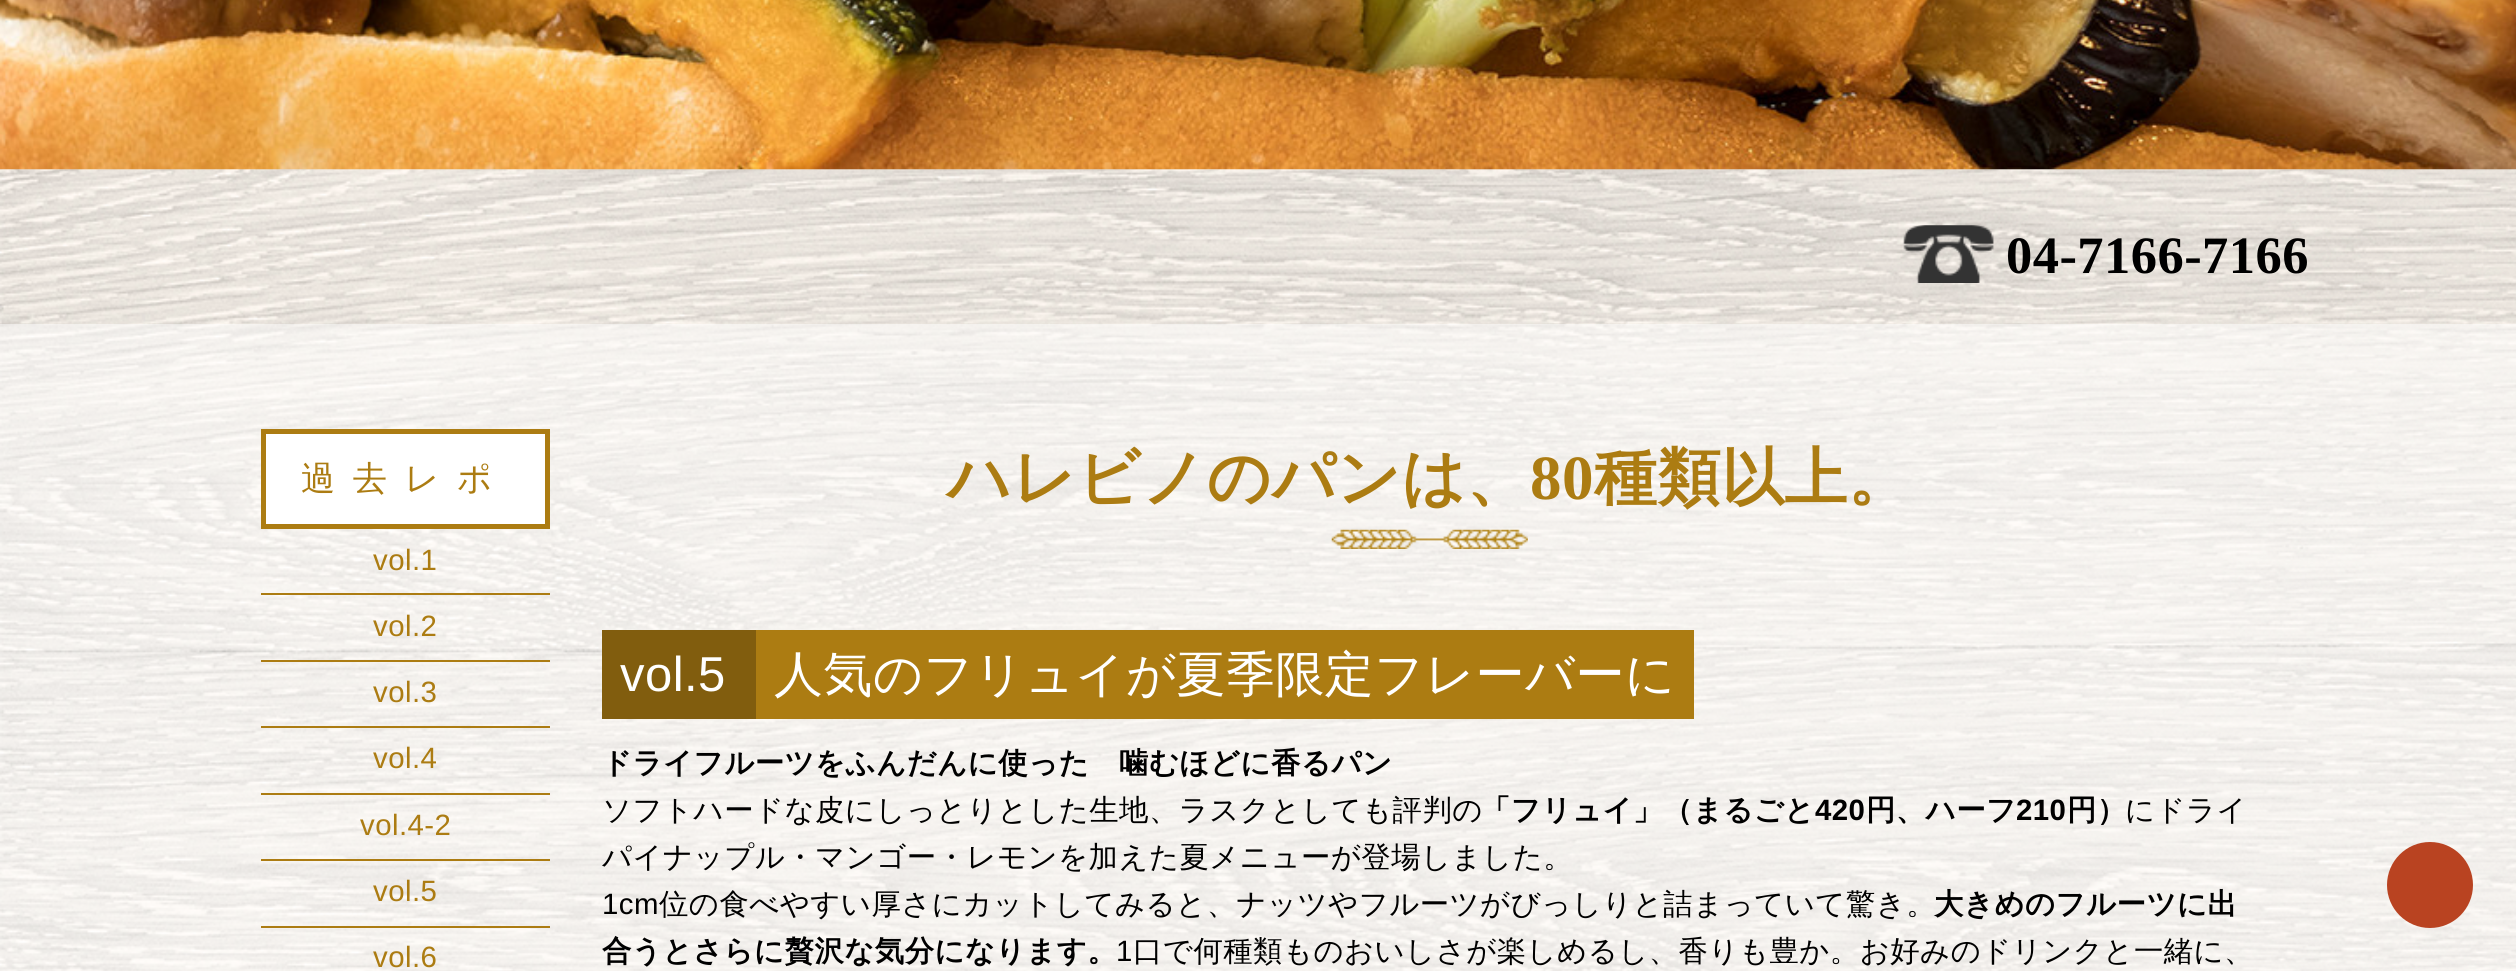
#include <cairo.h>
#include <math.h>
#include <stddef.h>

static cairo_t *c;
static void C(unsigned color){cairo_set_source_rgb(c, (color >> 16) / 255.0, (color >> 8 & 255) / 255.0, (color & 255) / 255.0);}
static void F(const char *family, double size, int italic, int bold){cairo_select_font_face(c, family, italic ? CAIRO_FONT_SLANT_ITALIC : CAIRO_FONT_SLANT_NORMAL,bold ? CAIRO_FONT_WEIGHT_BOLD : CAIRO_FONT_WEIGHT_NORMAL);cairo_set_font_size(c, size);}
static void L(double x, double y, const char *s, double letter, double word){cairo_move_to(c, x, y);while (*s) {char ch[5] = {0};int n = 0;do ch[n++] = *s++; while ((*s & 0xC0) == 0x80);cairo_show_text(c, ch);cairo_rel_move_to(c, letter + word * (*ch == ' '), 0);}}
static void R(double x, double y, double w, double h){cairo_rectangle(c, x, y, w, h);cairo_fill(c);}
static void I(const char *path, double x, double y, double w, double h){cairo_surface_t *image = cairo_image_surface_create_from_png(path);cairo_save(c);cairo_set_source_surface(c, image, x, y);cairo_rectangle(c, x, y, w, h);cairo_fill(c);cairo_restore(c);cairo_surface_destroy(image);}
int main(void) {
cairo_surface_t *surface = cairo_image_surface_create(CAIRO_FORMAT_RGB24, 2516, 971);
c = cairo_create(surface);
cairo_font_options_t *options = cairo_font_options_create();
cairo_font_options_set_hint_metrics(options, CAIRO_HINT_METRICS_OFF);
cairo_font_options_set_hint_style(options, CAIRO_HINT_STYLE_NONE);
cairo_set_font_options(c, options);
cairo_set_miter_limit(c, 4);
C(0xffffff);
cairo_paint(c);
I("1.png",0,169,2516,802);
I("2.png",0,0,2516,170);
I("3.png",1903,225,91,58);
F("Liberation Serif",52.5,0,1);
C(0x000000);
L(2006,273,"04-7166-7166",.45,0);
cairo_set_source_rgba(c,1,1,1,0.5);
R(0,324,2516,647);
C(0xffffff);
cairo_rectangle(c,263.5,431.5,284,95);
cairo_fill_preserve(c);
C(0xac7c12);
cairo_set_line_width(c,5);
cairo_stroke(c);
F("WenQuanYi Zen Hei Medium",34.25,0,0);
L(301,490,"過去レポ",17.5,0);
R(261,593,289,2);
F("Liberation Sans",29.4,0,0);
L(373,570,"vol.1",.45,0);
R(261,660,289,2);
L(373,636,"vol.2",.45,0);
R(261,726,289,2);
L(373,702,"vol.3",.45,0);
R(261,793,289,2);
L(373,768,"vol.4",.45,0);
R(261,859,289,2);
L(360,835,"vol.4-2",.45,0);
R(261,926,289,2);
L(373,901,"vol.5",.45,0);
L(373,967,"vol.6",.45,0);
I("4.png",1331,529,197,20);
F("WenQuanYi Zen Hei",63,0,1);
L(947,499,"ハレビノのパンは、",.45,0);
F("Liberation Serif",63,0,1);
L(1530,499,"80",.45,0);
F("WenQuanYi Zen Hei",63,0,1);
L(1594,499,"種類以上。",.45,0);
C(0x815d0e);
R(602,630,154,89);
F("Liberation Sans",49,0,0);
C(0xffffff);
L(620,691,"vol.5",.45,0);
C(0xac7c12);
R(756,630,938,89);
F("WenQuanYi Zen Hei Medium",49,0,0);
C(0xffffff);
L(774,691,"人気のフリュイが夏季限定フレーバーに",.45,0);
F("WenQuanYi Zen Hei",29.4,0,1);
C(0x000000);
L(602,773,"ドライフルーツをふんだんに使った　噛むほどに香るパン",.45,0);
F("WenQuanYi Zen Hei Medium",29.4,0,0);
L(602,820,"ソフトハードな皮にしっとりとした生地、ラスクとしても評判の",.45,0);
F("WenQuanYi Zen Hei",29.4,0,1);
L(1481,820,"「フリュイ」（まるごと",.45,0);
F("Liberation Sans",29.4,0,1);
L(1815,820,"420",.45,0);
F("WenQuanYi Zen Hei",29.4,0,1);
L(1866,820,"円、ハーフ",.45,0);
F("Liberation Sans",29.4,0,1);
L(2016,820,"210",.45,0);
F("WenQuanYi Zen Hei",29.4,0,1);
L(2067,820,"円）",.45,0);
F("WenQuanYi Zen Hei Medium",29.4,0,0);
L(2125,820,"にドライ",.45,0);
L(602,867,"パイナップル・マンゴー・レモンを加えた夏メニューが登場しました。",.45,0);
F("Liberation Sans",29.4,0,0);
L(602,914,"1cm",.45,0);
F("WenQuanYi Zen Hei Medium",29.4,0,0);
L(659,914,"位の食べやすい厚さにカットしてみると、ナッツやフルーツがびっしりと詰まっていて驚き。",.45,0);
F("WenQuanYi Zen Hei",29.4,0,1);
L(1934,914,"大きめのフルーツに出",.45,0);
L(602,961,"合うとさらに贅沢な気分になります。",.45,0);
F("Liberation Sans",29.4,0,0);
L(1116,961,"1",.45,0);
F("WenQuanYi Zen Hei Medium",29.4,0,0);
L(1133,961,"口で何種類ものおいしさが楽しめるし、香りも豊か。お好みのドリンクと一緒に、",.45,0);
C(0xb94321);
cairo_new_path(c);
cairo_arc(c,2430,885,43,0,2 * M_PI);
cairo_fill(c);
cairo_surface_write_to_png(surface, "o.png");
cairo_font_options_destroy(options);
cairo_destroy(c);
cairo_surface_destroy(surface);
return 0;
}
